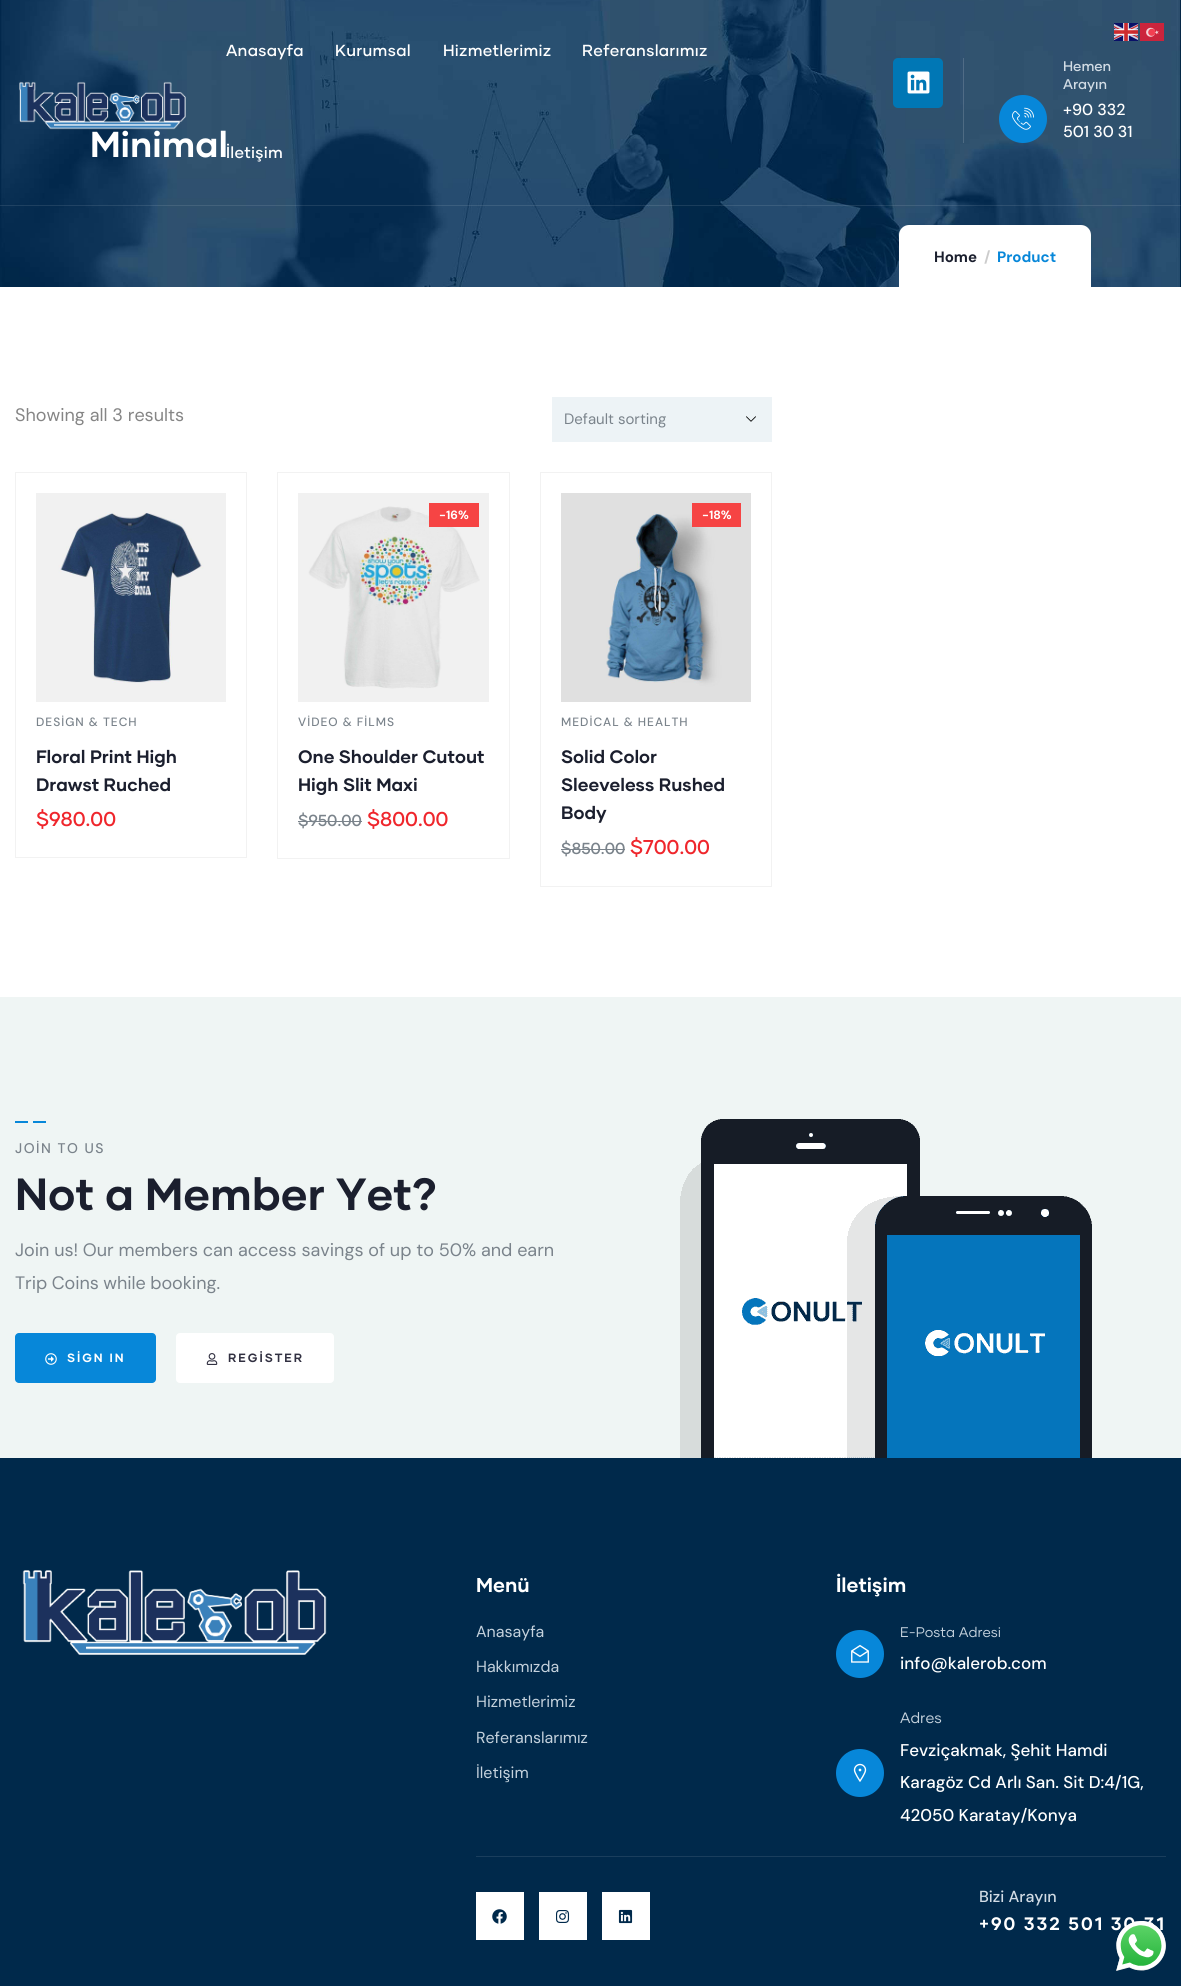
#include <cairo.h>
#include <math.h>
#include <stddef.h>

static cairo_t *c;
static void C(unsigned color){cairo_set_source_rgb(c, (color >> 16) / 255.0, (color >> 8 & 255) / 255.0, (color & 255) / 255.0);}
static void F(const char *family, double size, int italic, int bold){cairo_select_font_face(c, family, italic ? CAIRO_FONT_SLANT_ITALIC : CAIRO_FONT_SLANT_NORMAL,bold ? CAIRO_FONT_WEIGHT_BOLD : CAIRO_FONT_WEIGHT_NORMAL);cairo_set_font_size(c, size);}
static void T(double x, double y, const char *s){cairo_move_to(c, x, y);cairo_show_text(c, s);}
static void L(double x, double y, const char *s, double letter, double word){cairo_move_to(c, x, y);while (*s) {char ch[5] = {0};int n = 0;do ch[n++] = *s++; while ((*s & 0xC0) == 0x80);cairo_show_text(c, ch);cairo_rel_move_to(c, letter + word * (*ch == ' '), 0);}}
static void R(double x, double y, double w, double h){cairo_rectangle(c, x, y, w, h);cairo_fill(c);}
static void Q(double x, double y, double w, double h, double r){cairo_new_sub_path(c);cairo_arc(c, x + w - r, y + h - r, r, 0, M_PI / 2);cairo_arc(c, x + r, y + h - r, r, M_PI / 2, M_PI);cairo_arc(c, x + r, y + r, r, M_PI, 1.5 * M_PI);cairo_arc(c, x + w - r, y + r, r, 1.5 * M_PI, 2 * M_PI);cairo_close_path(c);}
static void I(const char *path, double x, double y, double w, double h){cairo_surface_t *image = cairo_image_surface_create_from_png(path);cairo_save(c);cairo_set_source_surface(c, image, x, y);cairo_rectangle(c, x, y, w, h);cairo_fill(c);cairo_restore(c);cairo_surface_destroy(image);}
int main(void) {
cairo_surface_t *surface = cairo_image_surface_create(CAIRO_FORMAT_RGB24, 1181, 1986);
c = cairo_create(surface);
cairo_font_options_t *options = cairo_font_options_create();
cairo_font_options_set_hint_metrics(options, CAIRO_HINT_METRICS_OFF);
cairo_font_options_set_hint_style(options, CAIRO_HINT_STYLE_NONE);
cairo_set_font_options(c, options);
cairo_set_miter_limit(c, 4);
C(0xffffff);
cairo_paint(c);
I("6.png",0,0,1181,287);
I("1.png",1114,23,24,18);
I("2.png",1140,23,24,18);
cairo_set_source_rgba(c,1,1,1,0.1);
R(0,205,1181,1);
I("3.png",19,81,167,49);
F("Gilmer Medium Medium",16,0,0);
C(0xffffff);
L(226,56,"Anasayfa",.25,0);
L(335,56,"Kurumsal",.25,0);
L(443,56,"Hizmetlerimiz",.25,0);
L(582,56,"Referanslarımız",.25,0);
L(226,158,"İletişim",.25,0);
C(0x0077b5);
Q(893,58,50,50,5);
cairo_fill(c);
I("4.png",907,71,23,23);
cairo_set_source_rgba(c,1,1,1,0.15);
R(963,58,1,85);
C(0x0787d9);
cairo_arc(c,1023,119,24,0,2 * M_PI);
cairo_fill(c);
I("5.png",1012,107,22,23);
F("Gilmer Medium Medium",14,0,0);
C(0xd2dce5);
T(1063,71,"Hemen");
T(1063,89,"Arayın");
F("DM Sans Medium",16,0,0);
C(0xffffff);
T(1063,115,"+90 332");
T(1063,137,"501 30 31");
F("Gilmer",36,0,1);
T(90,157,"Minimal");
cairo_new_path(c);
cairo_move_to(c,909,225);
cairo_line_to(c,1081,225);
cairo_curve_to(c,1086.5,225,1091,229.5,1091,235);
cairo_line_to(c,1091,287);
cairo_line_to(c,899,287);
cairo_line_to(c,899,235);
cairo_curve_to(c,899,229.5,903.5,225,909,225);
cairo_close_path(c);
cairo_fill(c);
F("DM Sans",15,0,1);
C(0x1b1f2e);
T(934,262,"Home");
C(0xcccccc);
T(984,262,"/");
C(0x0787d9);
T(997,262,"Product");
F("DM Sans",18,0,0);
C(0x858585);
T(15,421,"Showing all 3 results");
C(0xedf3f6);
R(552,397,220,45);
I("7.png",746,416,10,6);
F("DM Sans",15,0,0);
C(0x7a838b);
T(564,424,"Default sorting");
cairo_rectangle(c,15.5,472.5,231,385);
C(0xf2f2f2);
cairo_set_line_width(c,1);
cairo_stroke(c);
I("8.png",36,493,190,209);
F("DM Sans Medium",12,0,0);
C(0x7a838b);
L(36,726,"DESİGN & TECH",1,0);
F("Gilmer",18,0,1);
C(0x1b1f2e);
T(36,763,"Floral Print High");
T(36,791,"Drawst Ruched");
F("Gilmer Medium Medium",20,0,0);
C(0xef262c);
T(36,826,"$980.00");
cairo_rectangle(c,277.5,472.5,232,386);
C(0xf2f2f2);
cairo_stroke(c);
I("9.png",298,493,191,209);
C(0xf64444);
R(429,503,50,24);
F("DM Sans",12,0,1);
C(0xffffff);
T(439,519,"-16%");
F("DM Sans Medium",12,0,0);
C(0x7a838b);
L(298,726,"VİDEO & FİLMS",1,0);
F("Gilmer",18,0,1);
C(0x1b1f2e);
T(298,763,"One Shoulder Cutout");
T(298,791,"High Slit Maxi");
F("Gilmer Medium Medium",16,0,0);
C(0x7a838b);
T(298,826,"$950.00");
R(298,821,64,1);
F("Gilmer Medium Medium",20,0,0);
C(0xef262c);
T(367,826,"$800.00");
cairo_rectangle(c,540.5,472.5,231,414);
C(0xf2f2f2);
cairo_stroke(c);
I("10.png",561,493,190,209);
C(0xf64444);
R(692,503,49,24);
F("DM Sans",12,0,1);
C(0xffffff);
T(702,519,"-18%");
F("DM Sans Medium",12,0,0);
C(0x7a838b);
L(561,726,"MEDİCAL & HEALTH",1,0);
F("Gilmer",18,0,1);
C(0x1b1f2e);
T(561,763,"Solid Color");
T(561,791,"Sleeveless Rushed");
T(561,819,"Body");
F("Gilmer Medium Medium",16,0,0);
C(0x7a838b);
T(561,854,"$850.00");
R(561,849,64,1);
F("Gilmer Medium Medium",20,0,0);
C(0xef262c);
T(630,854,"$700.00");
C(0xeff5f4);
R(0,997,1181,461);
C(0x0787d9);
R(15,1121,13,2);
R(33,1121,13,2);
F("DM Sans Medium",14,0,0);
C(0x7a838b);
L(15,1153,"JOİN TO US",1.5,0);
F("Gilmer",45,0,1);
C(0x1b1f2e);
T(15,1210,"Not a Member Yet?");
F("DM Sans",18,0,0);
C(0x7a838b);
T(15,1256,"Join us! Our members can access savings of up to 50% and earn");
L(15,1289,"Trip Coins while booking.",0,-.5);
C(0x0787d9);
Q(15,1333,141,50,4);
cairo_fill(c);
I("11.png",45,1353,12,12);
F("Gilmer",12,0,1);
C(0xffffff);
L(67,1362,"SİGN IN",2,0);
Q(176,1333,158,50,4);
cairo_fill(c);
I("12.png",206,1353,12,12);
C(0x313041);
L(228,1362,"REGİSTER",2,0);
I("13.png",680,1119,412,339);
C(0x00294b);
R(0,1458,1181,528);
I("14.png",22,1570,305,85);
F("Gilmer",20,0,1);
C(0xffffff);
T(476,1592,"Menü");
F("DM Sans",16,0,0);
C(0xc5d2dd);
T(476,1637,"Anasayfa");
T(476,1672,"Hakkımızda");
T(476,1707,"Hizmetlerimiz");
T(476,1743,"Referanslarımız");
T(476,1778,"İletişim");
F("Gilmer",20,0,1);
C(0xffffff);
T(836,1592,"İletişim");
C(0x0787d9);
cairo_new_path(c);
cairo_arc(c,860,1654,24,0,2 * M_PI);
cairo_fill(c);
I("15.png",851,1644,18,19);
F("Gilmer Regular",14,0,0);
C(0xc5d2dd);
T(900,1637,"E-Posta Adresi");
F("DM Sans Medium",17,0,0);
C(0xffffff);
T(900,1669,"info@kalerob.com");
C(0x0787d9);
cairo_new_path(c);
cairo_arc(c,860,1773,24,0,2 * M_PI);
cairo_fill(c);
I("16.png",853,1763,14,19);
F("Gilmer Regular",15,0,0);
C(0xc5d2dd);
T(900,1723,"Adres");
F("DM Sans Medium",17,0,0);
C(0xffffff);
T(900,1756,"Fevziçakmak, Şehit Hamdi");
T(900,1788,"Karagöz Cd Arlı San. Sit D:4/1G,");
T(900,1821,"42050 Karatay/Konya");
C(0x1a3e5d);
R(476,1856,690,1);
C(0xffffff);
R(476,1892,48,48);
I("17.png",492,1909,15,15);
R(539,1892,48,48);
I("18.png",556,1910,14,13);
R(602,1892,48,48);
I("19.png",618,1909,15,15);
F("DM Sans Medium",16,0,0);
C(0xd2dce5);
T(979,1902,"Bizi Arayın");
F("Gilmer",18,0,1);
C(0xffffff);
L(979,1930,"+90 332 501 30 31",2,0);
I("20.png",1116,1921,50,50);
cairo_surface_write_to_png(surface, "o.png");
cairo_font_options_destroy(options);
cairo_destroy(c);
cairo_surface_destroy(surface);
return 0;
}
